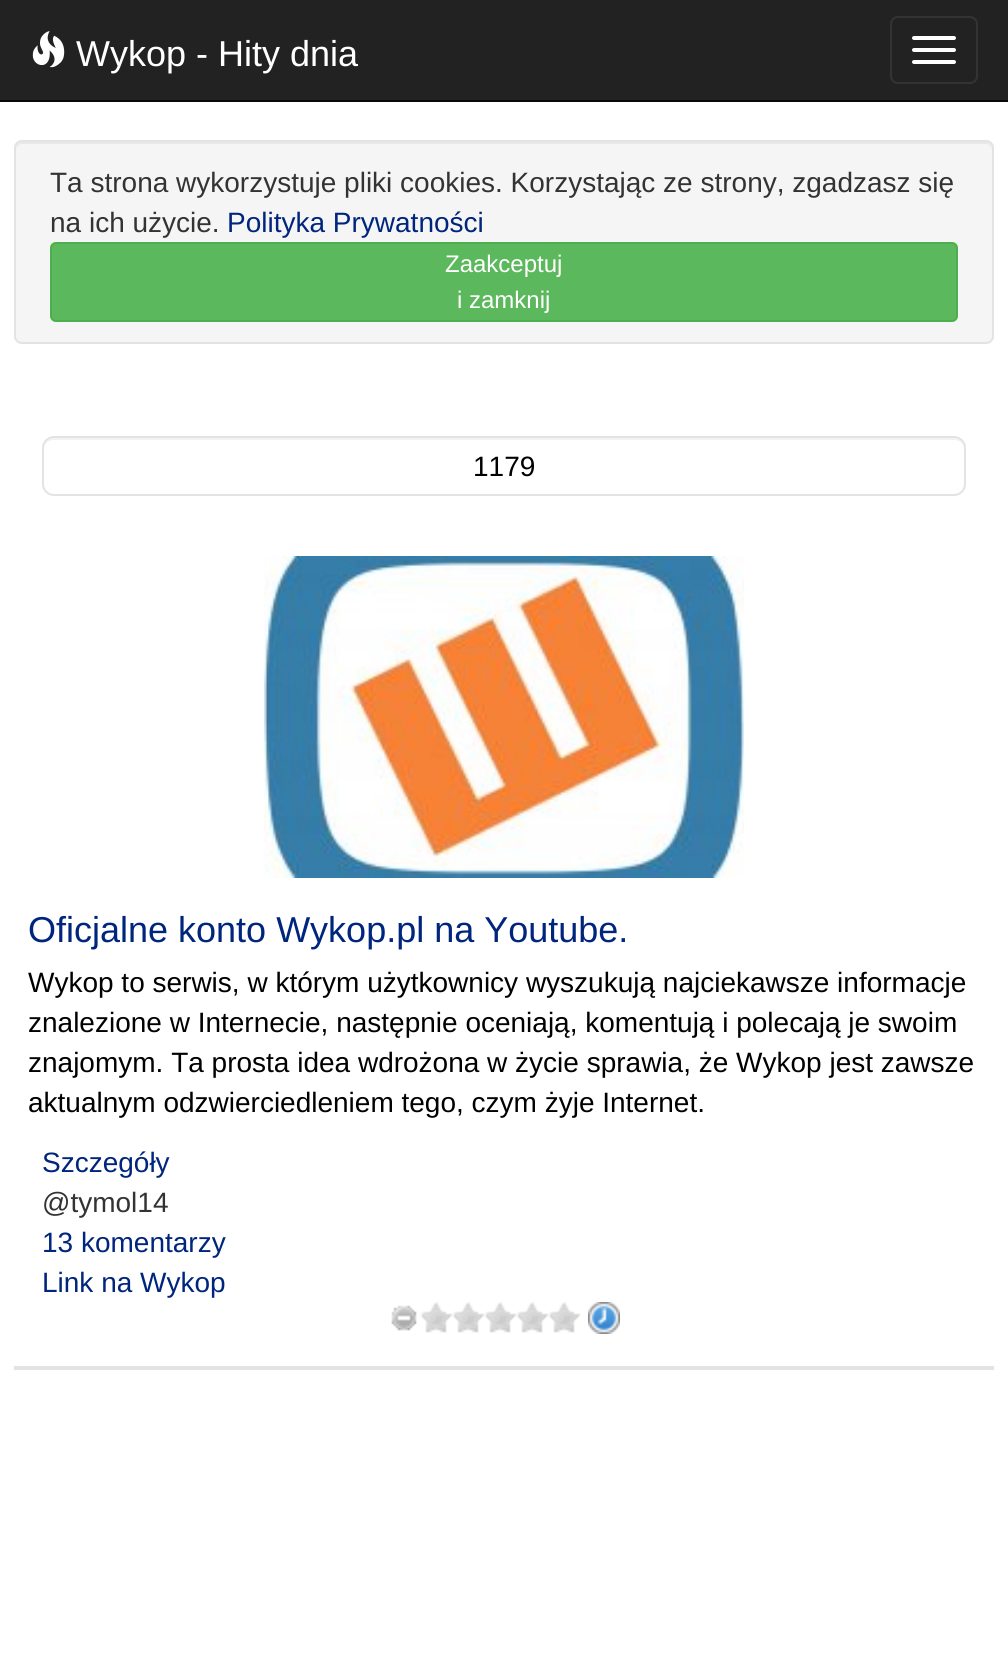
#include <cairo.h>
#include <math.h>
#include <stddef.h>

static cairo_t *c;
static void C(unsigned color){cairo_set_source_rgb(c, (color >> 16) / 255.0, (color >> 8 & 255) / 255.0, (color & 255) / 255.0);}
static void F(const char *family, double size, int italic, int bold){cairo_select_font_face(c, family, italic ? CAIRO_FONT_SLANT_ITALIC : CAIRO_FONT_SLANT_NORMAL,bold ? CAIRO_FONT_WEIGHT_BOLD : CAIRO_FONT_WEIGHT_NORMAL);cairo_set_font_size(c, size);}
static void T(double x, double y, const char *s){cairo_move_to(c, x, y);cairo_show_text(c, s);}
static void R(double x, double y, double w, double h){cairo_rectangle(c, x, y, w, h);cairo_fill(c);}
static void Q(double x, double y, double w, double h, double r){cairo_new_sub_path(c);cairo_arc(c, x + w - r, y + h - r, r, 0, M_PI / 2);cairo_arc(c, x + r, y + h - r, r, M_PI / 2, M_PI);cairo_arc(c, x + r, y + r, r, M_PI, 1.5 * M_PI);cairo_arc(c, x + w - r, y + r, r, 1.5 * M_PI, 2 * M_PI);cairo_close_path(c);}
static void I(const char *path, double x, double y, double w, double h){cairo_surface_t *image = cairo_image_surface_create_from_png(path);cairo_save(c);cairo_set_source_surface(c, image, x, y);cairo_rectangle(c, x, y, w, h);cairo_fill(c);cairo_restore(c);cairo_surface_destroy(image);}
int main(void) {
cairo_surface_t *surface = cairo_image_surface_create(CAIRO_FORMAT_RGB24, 1008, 1672);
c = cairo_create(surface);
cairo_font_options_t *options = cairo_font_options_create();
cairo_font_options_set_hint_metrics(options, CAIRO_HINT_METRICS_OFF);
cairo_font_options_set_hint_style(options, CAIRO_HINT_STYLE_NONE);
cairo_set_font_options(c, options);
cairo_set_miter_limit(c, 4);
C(0xffffff);
cairo_paint(c);
C(0x222222);
R(0,0,1008,100);
C(0x080808);
R(0,100,1008,2);
I("1.png",32,31,33,37);
F("Liberation Sans",36,0,0);
C(0xffffff);
T(76,66,"Wykop - Hity dnia");
Q(891,17,86,66,7);
C(0x333333);
cairo_stroke(c);
C(0xffffff);
Q(912,36,44,4,2);
cairo_fill(c);
Q(912,48,44,4,2);
cairo_fill(c);
Q(912,60,44,4,2);
cairo_fill(c);
C(0xf5f5f5);
Q(14,140,980,204,8);
cairo_fill(c);
C(0xe9e9e9);
cairo_new_path(c);
cairo_move_to(c,22,144);
cairo_line_to(c,986,144);
cairo_curve_to(c,989,144,992,147,992,150);
cairo_line_to(c,992,148);
cairo_curve_to(c,992,145,989,142,986,142);
cairo_line_to(c,22,142);
cairo_curve_to(c,19,142,16,145,16,148);
cairo_line_to(c,16,150);
cairo_curve_to(c,16,147,19,144,22,144);
cairo_close_path(c);
cairo_fill(c);
Q(15,141,978,202,7);
C(0xe3e3e3);
cairo_stroke(c);
F("Liberation Sans",28,0,0);
C(0x333333);
T(50,192,"Ta strona wykorzystuje pliki cookies. Korzystając ze strony, zgadzasz się");
T(50,232,"na ich użycie.");
C(0x00257c);
T(227,232,"Polityka Prywatności");
C(0x5cb85c);
Q(51,243,906,78,5);
cairo_fill_preserve(c);
C(0x4cae4c);
cairo_stroke(c);
F("Liberation Sans",24,0,0);
C(0xffffff);
T(445,272,"Zaakceptuj");
T(457,308,"i zamknij");
C(0xe3e3e3);
R(14,1366,980,4);
C(0xf2f2f2);
cairo_new_path(c);
cairo_move_to(c,54,440);
cairo_line_to(c,954,440);
cairo_curve_to(c,960,440,964,444,964,450);
cairo_curve_to(c,964,444,961,438,954,438);
cairo_line_to(c,54,438);
cairo_curve_to(c,47,438,44,444,44,450);
cairo_curve_to(c,44,444,48,440,54,440);
cairo_close_path(c);
cairo_fill(c);
Q(43,437,922,58,11);
C(0xe3e3e3);
cairo_stroke(c);
F("Liberation Sans",28,0,0);
C(0x000000);
T(473,476,"1179");
I("2.png",264,556,480,322);
F("Liberation Sans",36,0,0);
C(0x00257c);
T(28,942,"Oficjalne konto Wykop.pl na Youtube.");
F("Liberation Sans",28,0,0);
C(0x000000);
T(28,992,"Wykop to serwis, w którym użytkownicy wyszukują najciekawsze informacje");
T(28,1032,"znalezione w Internecie, następnie oceniają, komentują i polecają je swoim");
T(28,1072,"znajomym. Ta prosta idea wdrożona w życie sprawia, że Wykop jest zawsze");
T(28,1112,"aktualnym odzwierciedleniem tego, czym żyje Internet.");
C(0x00257c);
T(42,1172,"Szczegóły");
C(0x333333);
T(42,1212,"@tymol14");
C(0x00257c);
T(42,1252,"13 komentarzy");
T(42,1292,"Link na Wykop");
I("3.png",391,1305,26,26);
I("4.png",420,1302,160,31);
I("5.png",588,1302,32,32);
cairo_surface_write_to_png(surface, "o.png");
cairo_font_options_destroy(options);
cairo_destroy(c);
cairo_surface_destroy(surface);
return 0;
}
